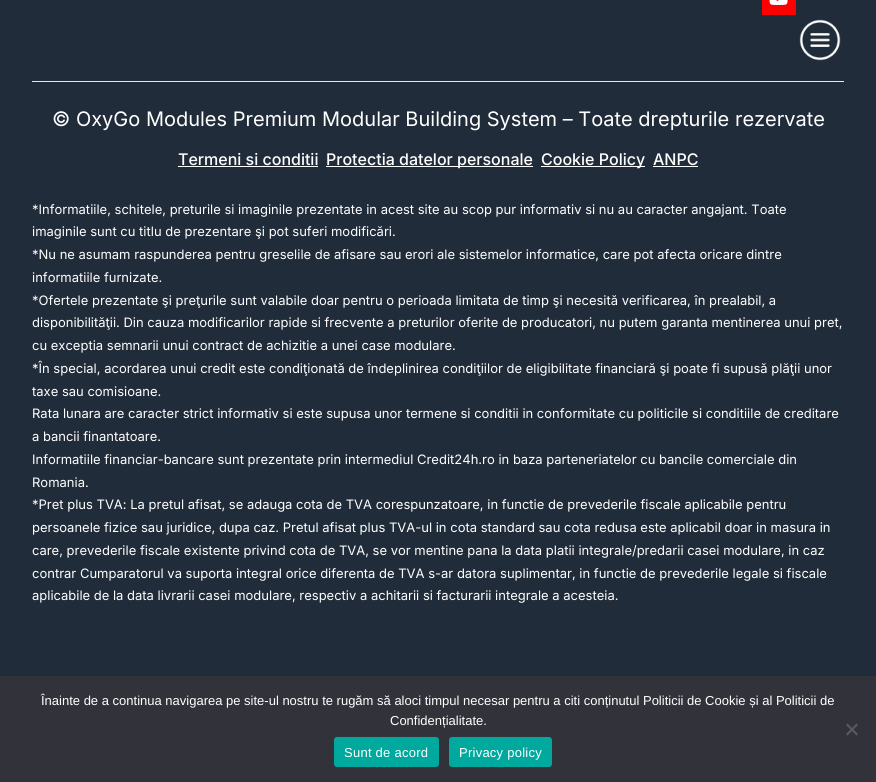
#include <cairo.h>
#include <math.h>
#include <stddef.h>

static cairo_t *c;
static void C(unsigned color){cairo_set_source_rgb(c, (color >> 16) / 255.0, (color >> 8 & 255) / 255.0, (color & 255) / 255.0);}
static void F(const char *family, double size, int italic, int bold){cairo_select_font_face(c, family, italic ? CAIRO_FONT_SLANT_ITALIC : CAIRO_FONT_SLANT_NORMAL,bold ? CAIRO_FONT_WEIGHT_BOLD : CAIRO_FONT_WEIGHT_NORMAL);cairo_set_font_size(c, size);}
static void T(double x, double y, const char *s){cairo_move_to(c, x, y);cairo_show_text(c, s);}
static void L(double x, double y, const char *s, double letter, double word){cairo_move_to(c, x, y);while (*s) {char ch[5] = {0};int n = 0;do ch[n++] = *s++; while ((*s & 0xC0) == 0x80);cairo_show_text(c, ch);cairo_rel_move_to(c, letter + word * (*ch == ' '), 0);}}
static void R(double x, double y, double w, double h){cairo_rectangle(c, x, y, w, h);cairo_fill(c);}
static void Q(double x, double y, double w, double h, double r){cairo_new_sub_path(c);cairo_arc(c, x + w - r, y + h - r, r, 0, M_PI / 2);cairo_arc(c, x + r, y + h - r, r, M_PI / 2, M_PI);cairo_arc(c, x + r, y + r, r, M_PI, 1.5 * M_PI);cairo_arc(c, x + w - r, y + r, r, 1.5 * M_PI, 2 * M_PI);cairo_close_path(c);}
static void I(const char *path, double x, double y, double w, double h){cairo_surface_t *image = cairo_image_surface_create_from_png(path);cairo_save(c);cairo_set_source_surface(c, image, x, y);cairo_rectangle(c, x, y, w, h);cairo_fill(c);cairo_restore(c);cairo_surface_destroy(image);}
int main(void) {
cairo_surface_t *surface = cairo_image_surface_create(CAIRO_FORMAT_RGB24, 876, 782);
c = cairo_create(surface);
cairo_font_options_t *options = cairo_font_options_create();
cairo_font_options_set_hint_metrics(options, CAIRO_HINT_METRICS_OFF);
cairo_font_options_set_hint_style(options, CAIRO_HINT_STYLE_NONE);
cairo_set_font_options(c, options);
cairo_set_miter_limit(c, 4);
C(0x212c3a);
cairo_paint(c);
I("1.png",799,19,42,42);
C(0xff0000);
R(762,0,34,15);
I("2.png",769,0,19,5);
C(0xe5e7eb);
R(32,81,812,1);
F("Inter",20,0,0);
C(0xffffff);
T(52,126,"© OxyGo Modules Premium Modular Building System – Toate drepturile rezervate");
F("Inter Medium",16,0,0);
T(178,165,"Termeni si conditii");
R(178,166,140,1);
R(326,166,207,1);
T(326,165,"Protectia datelor personale");
R(541,166,104,1);
T(541,165,"Cookie Policy");
T(653,165,"ANPC");
R(653,166,45,1);
F("Inter",13,0,0);
T(32,214,"*Informatiile, schitele, preturile si imaginile prezentate in acest site au scop pur informativ si nu au caracter angajant. Toate");
T(32,236,"imaginile sunt cu titlu de prezentare şi pot suferi modificări.");
T(32,259,"*Nu ne asumam raspunderea pentru greselile de afisare sau erori ale sistemelor informatice, care pot afecta oricare dintre");
T(32,282,"informatiile furnizate.");
T(32,305,"*Ofertele prezentate şi preţurile sunt valabile doar pentru o perioada limitata de timp şi necesită verificarea, în prealabil, a");
T(32,327,"disponibilităţii. Din cauza modificarilor rapide si frecvente a preturilor oferite de producatori, nu putem garanta mentinerea unui pret,");
T(32,350,"cu exceptia semnarii unui contract de achizitie a unei case modulare.");
T(32,373,"*În special, acordarea unui credit este condiţionată de îndeplinirea condiţiilor de eligibilitate financiară şi poate fi supusă plăţii unor");
T(32,396,"taxe sau comisioane.");
T(32,418,"Rata lunara are caracter strict informativ si este supusa unor termene si conditii in conformitate cu politicile si conditiile de creditare");
T(32,441,"a bancii finantatoare.");
T(32,464,"Informatiile financiar-bancare sunt prezentate prin intermediul Credit24h.ro in baza parteneriatelor cu bancile comerciale din");
T(32,487,"Romania.");
T(32,509,"*Pret plus TVA: La pretul afisat, se adauga cota de TVA corespunzatoare, in functie de prevederile fiscale aplicabile pentru");
T(32,532,"persoanele fizice sau juridice, dupa caz. Pretul afisat plus TVA-ul in cota standard sau cota redusa este aplicabil doar in masura in");
T(32,555,"care, prevederile fiscale existente privind cota de TVA, se vor mentine pana la data platii integrale/predarii casei modulare, in caz");
T(32,578,"contrar Cumparatorul va suporta integral orice diferenta de TVA s-ar datora suplimentar, in functie de prevederile legale si fiscale");
T(32,600,"aplicabile de la data livrarii casei modulare, respectiv a achitarii si facturarii integrale a acesteia.");
C(0x32323a);
R(0,676,876,106);
F("Liberation Sans",13,0,0);
C(0xffffff);
T(41,705,"Înainte de a continua navigarea pe site-ul nostru te rugăm să aloci timpul necesar pentru a citi conținutul Politicii de Cookie și al Politicii de");
T(390,725,"Confidențialitate.");
C(0x59595d);
cairo_new_path(c);
cairo_move_to(c,856.5,723.5);
cairo_line_to(c,858,725);
cairo_line_to(c,847.5,735.5);
cairo_line_to(c,846,734);
cairo_close_path(c);
cairo_fill(c);
cairo_new_path(c);
cairo_move_to(c,846,725);
cairo_line_to(c,847.5,723.5);
cairo_line_to(c,858,734);
cairo_line_to(c,856.5,735.5);
cairo_close_path(c);
cairo_fill(c);
C(0x00a99d);
Q(334,737,105,30,3);
cairo_fill(c);
C(0xffffff);
L(344,757,"Sunt de acord",.25,0);
C(0x00a99d);
Q(449,737,103,30,3);
cairo_fill(c);
C(0xffffff);
L(459,757,"Privacy policy",.25,0);
cairo_surface_write_to_png(surface, "o.png");
cairo_font_options_destroy(options);
cairo_destroy(c);
cairo_surface_destroy(surface);
return 0;
}
